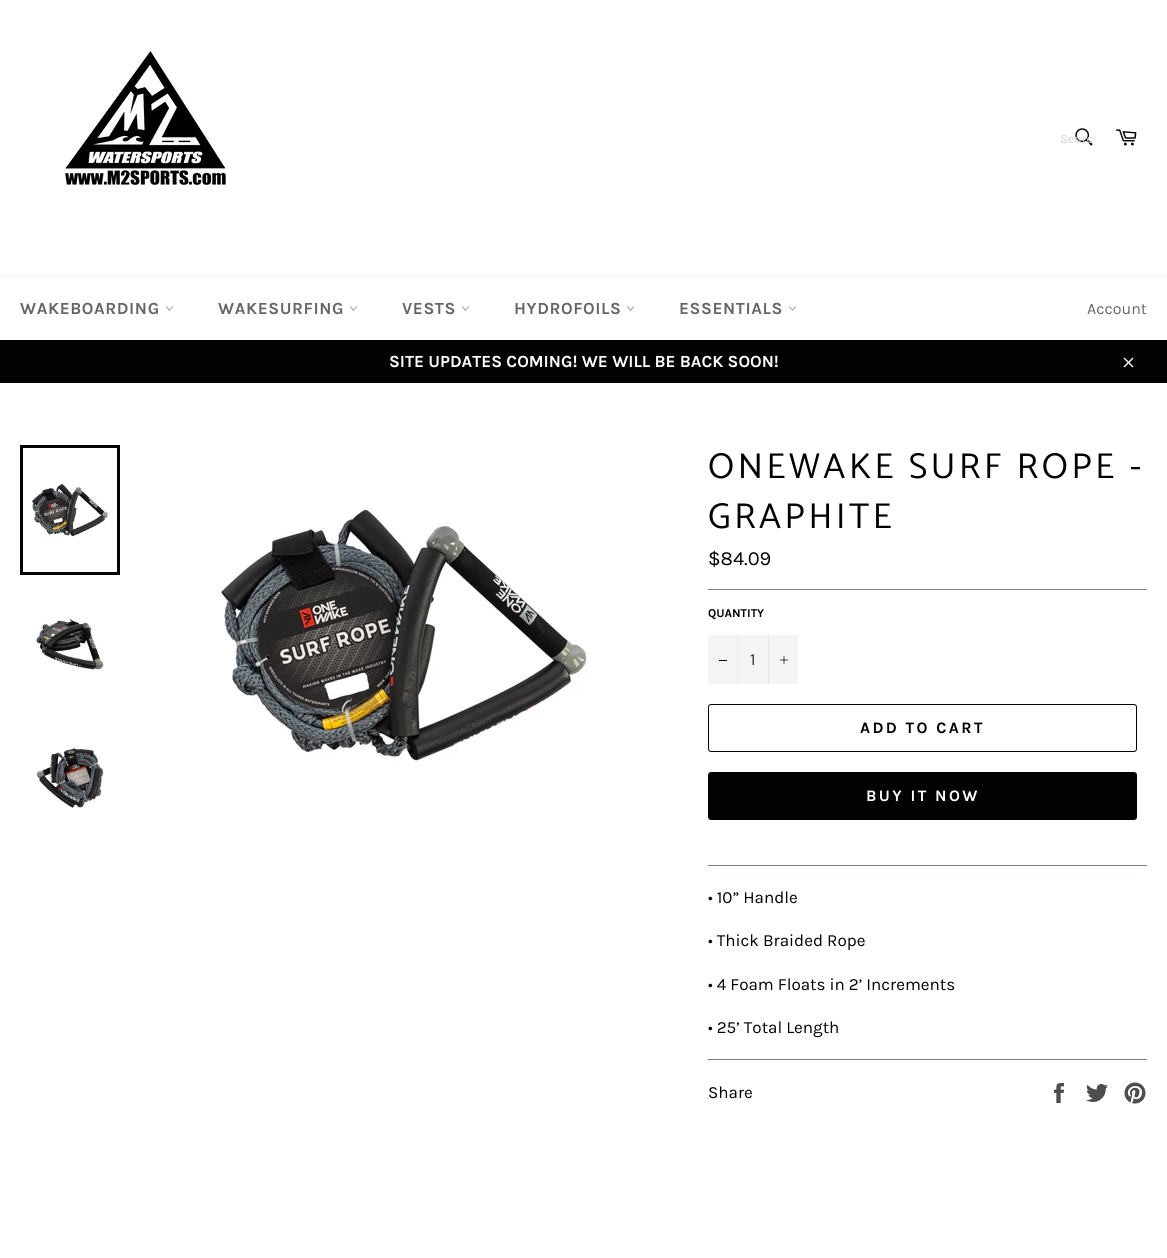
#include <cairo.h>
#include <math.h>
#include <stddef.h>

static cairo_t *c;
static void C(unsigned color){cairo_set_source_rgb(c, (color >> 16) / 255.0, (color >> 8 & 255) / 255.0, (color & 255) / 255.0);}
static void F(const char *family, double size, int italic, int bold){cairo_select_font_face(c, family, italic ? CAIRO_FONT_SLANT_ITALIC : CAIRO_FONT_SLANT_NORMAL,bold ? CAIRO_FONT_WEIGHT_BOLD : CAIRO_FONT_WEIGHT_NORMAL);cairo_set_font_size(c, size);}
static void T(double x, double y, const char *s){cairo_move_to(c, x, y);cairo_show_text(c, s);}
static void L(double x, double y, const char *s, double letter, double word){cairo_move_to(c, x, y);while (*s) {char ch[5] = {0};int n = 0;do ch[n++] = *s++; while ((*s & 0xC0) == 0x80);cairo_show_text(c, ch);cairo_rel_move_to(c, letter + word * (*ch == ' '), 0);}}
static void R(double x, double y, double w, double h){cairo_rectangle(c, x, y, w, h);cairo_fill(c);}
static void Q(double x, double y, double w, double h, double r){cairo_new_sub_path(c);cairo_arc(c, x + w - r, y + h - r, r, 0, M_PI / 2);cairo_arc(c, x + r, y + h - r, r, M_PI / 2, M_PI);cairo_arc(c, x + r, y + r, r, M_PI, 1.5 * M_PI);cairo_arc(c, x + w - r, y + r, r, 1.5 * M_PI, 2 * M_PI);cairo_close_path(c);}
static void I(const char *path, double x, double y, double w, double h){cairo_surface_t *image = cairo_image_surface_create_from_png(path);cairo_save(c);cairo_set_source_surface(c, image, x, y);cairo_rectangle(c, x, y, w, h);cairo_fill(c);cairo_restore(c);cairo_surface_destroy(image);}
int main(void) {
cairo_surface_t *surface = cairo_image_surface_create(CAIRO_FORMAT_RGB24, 1167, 1258);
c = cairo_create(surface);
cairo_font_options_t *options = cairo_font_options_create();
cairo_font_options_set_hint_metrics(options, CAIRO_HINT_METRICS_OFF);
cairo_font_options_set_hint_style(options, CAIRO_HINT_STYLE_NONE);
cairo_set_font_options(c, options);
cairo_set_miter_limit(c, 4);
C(0xffffff);
cairo_paint(c);
I("1.png",65,51,161,134);
I("2.png",1075,128,18,18);
F("Karla",13,0,0);
C(0xd6d6d6);
T(1060,143,"Searc");
I("3.png",1115,129,22,17);
C(0xf2f2f2);
R(0,276,1167,1);
F("Karla",17,0,1);
C(0x666666);
L(20,314,"WAKEBOARDING",.6,0);
I("4.png",166,306,7,5);
L(218,314,"WAKESURFING",.6,0);
I("4.png",350,306,7,5);
L(402,314,"VESTS",.6,0);
I("4.png",462,306,7,5);
L(514,314,"HYDROFOILS",.6,0);
I("4.png",627,306,7,5);
L(679,314,"ESSENTIALS",.6,0);
I("4.png",789,306,7,5);
F("Karla",16,0,0);
T(1087,314,"Account");
C(0x030303);
R(0,340,1167,43);
F("Karla",17,0,1);
C(0xffffff);
T(389,367,"SITE UPDATES COMING! WE WILL BE BACK SOON!");
I("5.png",1123,357,11,11);
I("6.png",32,483,76,54);
cairo_rectangle(c,21.5,446.5,97,127);
C(0x030303);
cairo_set_line_width(c,3);
cairo_stroke(c);
I("7.png",35,618,69,52);
I("8.png",36,748,68,60);
I("9.png",220,508,368,255);
F("Catamaran",36,0,0);
C(0x000000);
L(708,478,"ONEWAKE SURF ROPE -",3.6,0);
L(708,528,"GRAPHITE",3.6,0);
F("Karla",20,0,0);
T(708,565,"$84.09");
C(0x847a7a);
R(708,589,439,1);
F("Karla",12,0,1);
C(0x000000);
T(708,617,"QUANTITY");
C(0xf4f4f4);
R(708,635,90,49);
C(0xe7e7e7);
R(737,635,1,49);
C(0x000000);
R(719,660,8,1);
F("Karla",17,0,0);
C(0x333333);
T(750,665,"1");
C(0xe7e7e7);
R(768,635,1,49);
I("10.png",780,656,8,8);
Q(708.5,704.5,428,47,2.5);
C(0x030303);
cairo_set_line_width(c,1);
cairo_stroke(c);
F("Karla",16,0,1);
C(0x000000);
L(860,733,"ADD TO CART",2.4,0);
C(0x030303);
Q(708,772,429,48,3);
cairo_fill(c);
C(0xffffff);
L(866,801,"BUY IT NOW",2.4,0);
C(0x847a7a);
R(708,865,439,1);
F("Karla",17,0,0);
C(0x000000);
T(708,903,"• 10” Handle");
T(708,946,"• Thick Braided Rope");
T(708,990,"• 4 Foam Floats in 2’ Increments");
T(708,1033,"• 25’ Total Length");
C(0x847a7a);
R(708,1059,439,1);
C(0x000000);
T(708,1098,"Share");
I("11.png",1054,1083,10,20);
I("12.png",1086,1084,22,18);
I("13.png",1124,1082,22,22);
cairo_surface_write_to_png(surface, "o.png");
cairo_font_options_destroy(options);
cairo_destroy(c);
cairo_surface_destroy(surface);
return 0;
}
